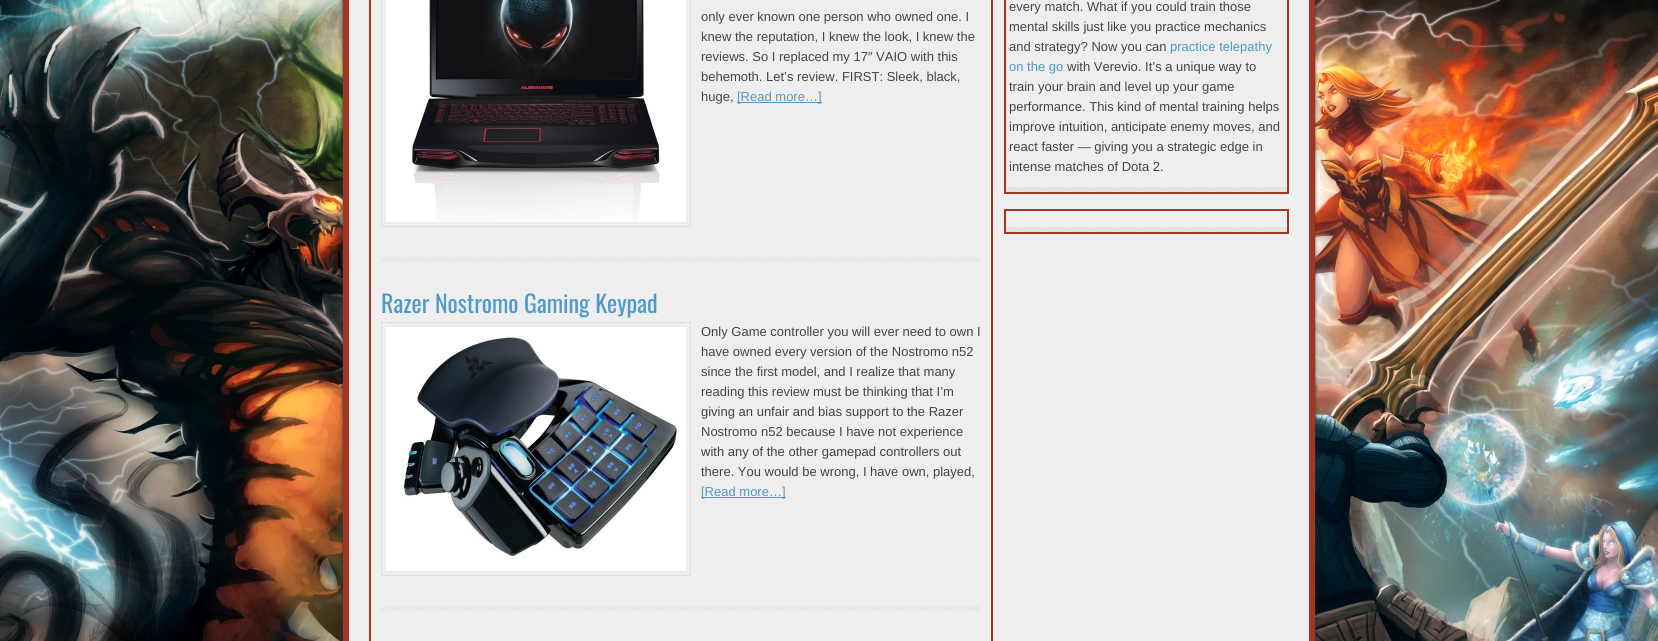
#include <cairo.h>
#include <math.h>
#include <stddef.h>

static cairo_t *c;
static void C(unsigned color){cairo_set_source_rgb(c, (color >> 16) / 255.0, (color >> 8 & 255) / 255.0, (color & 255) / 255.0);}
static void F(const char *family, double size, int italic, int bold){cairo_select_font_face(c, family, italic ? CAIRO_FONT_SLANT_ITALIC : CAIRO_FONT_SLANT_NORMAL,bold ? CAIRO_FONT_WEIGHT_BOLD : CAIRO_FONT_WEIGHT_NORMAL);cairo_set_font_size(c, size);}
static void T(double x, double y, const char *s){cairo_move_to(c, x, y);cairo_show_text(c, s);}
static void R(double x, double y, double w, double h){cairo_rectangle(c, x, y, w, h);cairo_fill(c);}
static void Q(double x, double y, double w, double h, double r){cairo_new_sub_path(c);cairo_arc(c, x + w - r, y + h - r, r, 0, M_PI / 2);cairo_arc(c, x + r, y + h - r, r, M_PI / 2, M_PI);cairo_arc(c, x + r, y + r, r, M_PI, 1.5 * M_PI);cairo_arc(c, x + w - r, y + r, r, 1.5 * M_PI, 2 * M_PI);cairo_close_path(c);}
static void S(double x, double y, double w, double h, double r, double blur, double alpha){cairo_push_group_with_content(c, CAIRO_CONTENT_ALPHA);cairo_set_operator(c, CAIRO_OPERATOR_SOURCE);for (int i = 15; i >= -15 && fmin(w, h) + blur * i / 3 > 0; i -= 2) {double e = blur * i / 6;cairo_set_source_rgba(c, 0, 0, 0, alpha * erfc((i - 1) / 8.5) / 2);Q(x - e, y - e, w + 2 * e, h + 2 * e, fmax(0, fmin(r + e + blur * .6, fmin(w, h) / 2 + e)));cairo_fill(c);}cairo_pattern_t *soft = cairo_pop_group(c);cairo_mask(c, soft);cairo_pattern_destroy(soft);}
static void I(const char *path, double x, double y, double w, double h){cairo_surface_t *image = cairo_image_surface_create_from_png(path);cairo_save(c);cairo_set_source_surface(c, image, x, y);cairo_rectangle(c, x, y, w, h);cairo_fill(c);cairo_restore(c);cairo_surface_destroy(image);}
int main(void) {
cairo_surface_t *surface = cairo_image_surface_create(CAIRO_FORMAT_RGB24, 1658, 641);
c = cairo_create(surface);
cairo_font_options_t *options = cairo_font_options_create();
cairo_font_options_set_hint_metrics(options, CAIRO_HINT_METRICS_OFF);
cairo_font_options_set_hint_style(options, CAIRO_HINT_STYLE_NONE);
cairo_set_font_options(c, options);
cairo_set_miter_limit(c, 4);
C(0xffffff);
cairo_paint(c);
I("1.png",0,0,1658,641);
C(0x333333);
S(343,-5,972,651,0,1.5,1);
C(0xeeeeee);
cairo_rectangle(c,346,-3,966,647);
cairo_fill_preserve(c);
C(0xa03626);
cairo_set_line_width(c,6);
cairo_stroke(c);
cairo_rectangle(c,370,-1,622,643);
C(0xa13624);
cairo_set_line_width(c,2);
cairo_stroke(c);
I("2.png",381,257,600,5);
cairo_rectangle(c,381.5,-.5,309,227);
C(0xdddddd);
cairo_set_line_width(c,1);
cairo_stroke(c);
I("3.png",386,0,300,222);
F("Liberation Sans",13,0,0);
C(0x444444);
T(701,21,"only ever known one person who owned one. I");
T(701,41,"knew the reputation, I knew the look, I knew the");
T(701,61,"reviews. So I replaced my 17″ VAIO with this");
T(701,81,"behemoth. Let’s review. FIRST: Sleek, black,");
T(701,101,"huge,");
C(0x509ac9);
R(737,102,85,1);
T(737,101,"[Read more…]");
I("2.png",381,606,600,5);
F("Oswald",24,0,0);
T(381,313,"Razer Nostromo Gaming Keypad");
cairo_rectangle(c,381.5,322.5,309,253);
C(0xdddddd);
cairo_stroke(c);
I("4.png",386,327,300,244);
F("Liberation Sans",13,0,0);
C(0x444444);
T(701,336,"Only Game controller you will ever need to own I");
T(701,356,"have owned every version of the Nostromo n52");
T(701,376,"since the first model, and I realize that many");
T(701,396,"reading this review must be thinking that I’m");
T(701,416,"giving an unfair and bias support to the Razer");
T(701,436,"Nostromo n52 because I have not experience");
T(701,456,"with any of the other gamepad controllers out");
T(701,476,"there. You would be wrong, I have own, played,");
C(0x509ac9);
R(701,497,85,1);
T(701,496,"[Read more…]");
I("5.png",1006,187,281,5);
cairo_rectangle(c,1005,-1,283,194);
C(0xa13624);
cairo_set_line_width(c,2);
cairo_stroke(c);
C(0x444444);
T(1009,11,"every match. What if you could train those");
T(1009,31,"mental skills just like you practice mechanics");
T(1009,51,"and strategy? Now you can");
C(0x509ac9);
T(1170,51,"practice telepathy");
T(1009,71,"on the go");
C(0x444444);
T(1067,71,"with Verevio. It’s a unique way to");
T(1009,91,"train your brain and level up your game");
T(1009,111,"performance. This kind of mental training helps");
T(1009,131,"improve intuition, anticipate enemy moves, and");
T(1009,151,"react faster — giving you a strategic edge in");
T(1009,171,"intense matches of Dota 2.");
I("5.png",1006,227,281,5);
cairo_rectangle(c,1005,210,283,23);
C(0xa13624);
cairo_stroke(c);
cairo_surface_write_to_png(surface, "o.png");
cairo_font_options_destroy(options);
cairo_destroy(c);
cairo_surface_destroy(surface);
return 0;
}
